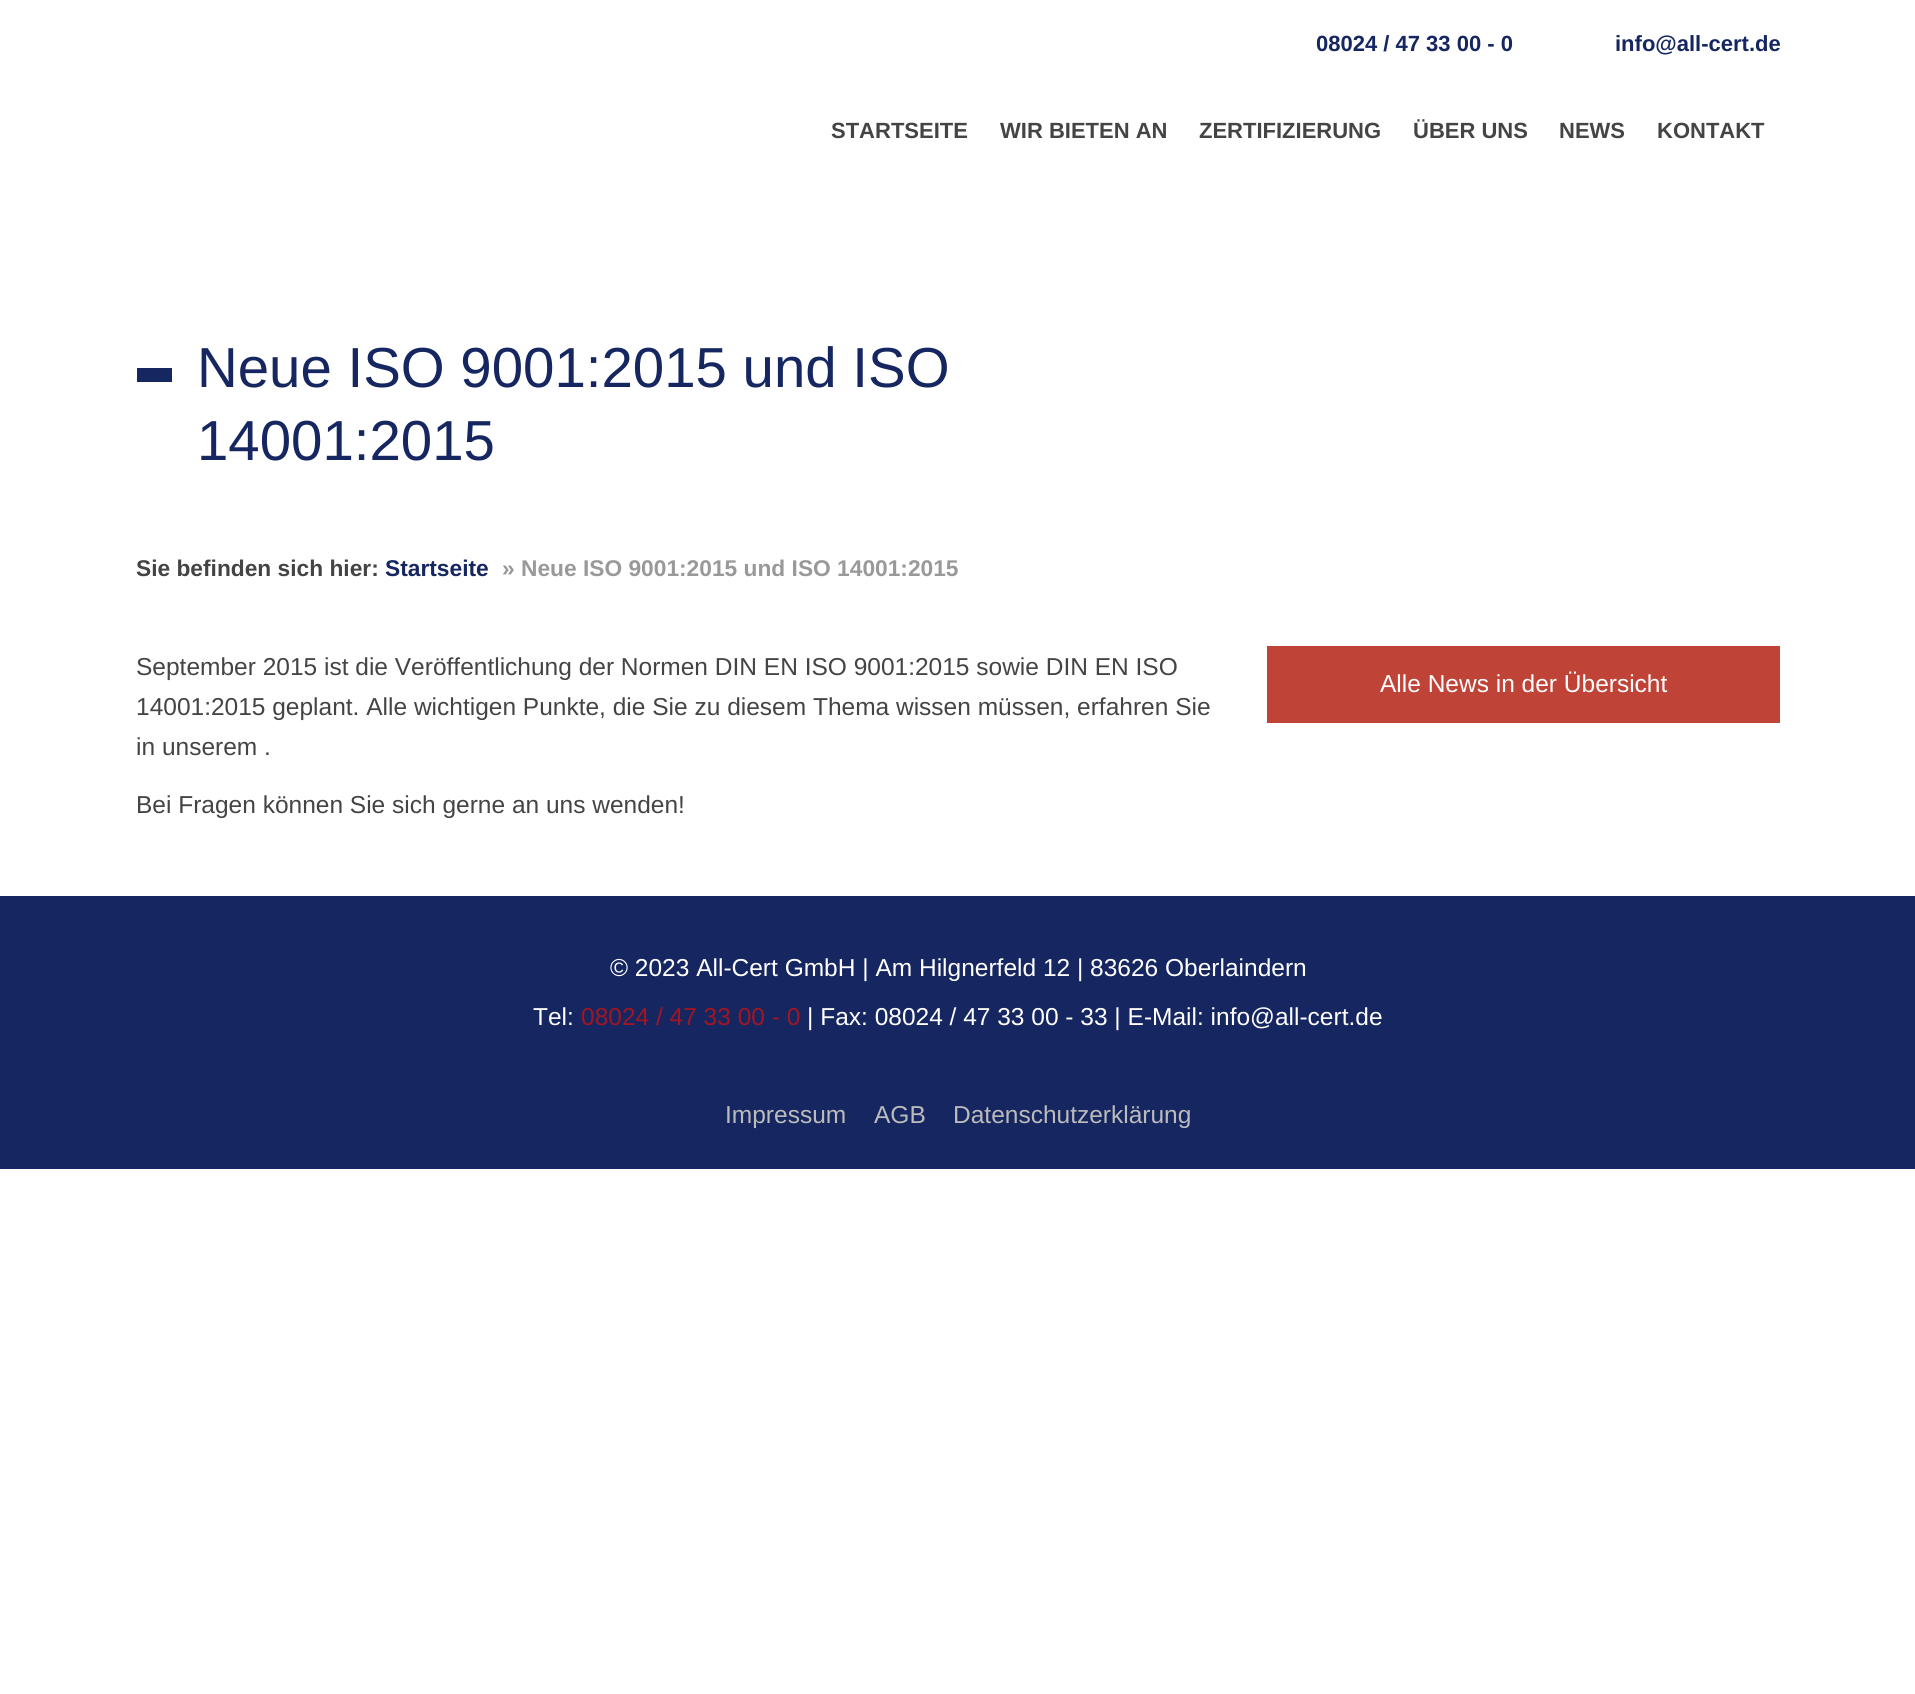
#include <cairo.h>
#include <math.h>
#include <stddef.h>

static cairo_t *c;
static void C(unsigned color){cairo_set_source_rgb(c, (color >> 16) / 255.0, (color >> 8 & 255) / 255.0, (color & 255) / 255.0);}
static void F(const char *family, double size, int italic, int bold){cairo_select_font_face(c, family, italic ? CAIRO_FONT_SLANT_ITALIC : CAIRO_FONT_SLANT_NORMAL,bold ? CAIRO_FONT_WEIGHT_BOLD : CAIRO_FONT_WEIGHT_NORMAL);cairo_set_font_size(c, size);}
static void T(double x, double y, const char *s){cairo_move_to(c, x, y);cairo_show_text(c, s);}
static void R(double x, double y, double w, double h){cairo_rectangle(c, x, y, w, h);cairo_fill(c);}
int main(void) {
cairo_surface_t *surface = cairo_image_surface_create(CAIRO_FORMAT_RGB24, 1915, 1694);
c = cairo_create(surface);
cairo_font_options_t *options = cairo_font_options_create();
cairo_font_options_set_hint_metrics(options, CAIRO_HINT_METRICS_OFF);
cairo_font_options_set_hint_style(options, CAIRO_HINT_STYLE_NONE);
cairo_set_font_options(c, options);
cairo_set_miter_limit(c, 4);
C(0xffffff);
cairo_paint(c);
F("Liberation Sans",22,0,1);
C(0x152660);
T(1316,51,"08024 / 47 33 00 - 0");
T(1615,51,"info@all-cert.de");
C(0x444444);
T(831,138,"STARTSEITE");
T(1000,138,"WIR BIETEN AN");
T(1199,138,"ZERTIFIZIERUNG");
T(1413,138,"ÜBER UNS");
T(1559,138,"NEWS");
T(1657,138,"KONTAKT");
C(0x152660);
R(137,368,35,14);
F("Liberation Sans",56.4,0,0);
T(197,387,"Neue ISO 9001:2015 und ISO");
T(197,460,"14001:2015");
F("Liberation Sans",22.75,0,1);
C(0x444444);
T(136,576,"Sie befinden sich hier:");
C(0x152660);
T(385,576,"Startseite");
C(0x999999);
T(502,576,"» Neue ISO 9001:2015 und ISO 14001:2015");
F("Liberation Sans",24.5,0,0);
C(0x444444);
T(136,675,"September 2015 ist die Veröffentlichung der Normen DIN EN ISO 9001:2015 sowie DIN EN ISO");
T(136,715,"14001:2015 geplant. Alle wichtigen Punkte, die Sie zu diesem Thema wissen müssen, erfahren Sie");
T(136,755,"in unserem .");
T(136,813,"Bei Fragen können Sie sich gerne an uns wenden!");
C(0xc04338);
R(1267,646,513,77);
C(0xffffff);
T(1380,692,"Alle News in der Übersicht");
C(0x152660);
R(0,896,1915,273);
C(0xffffff);
T(610,976,"© 2023 All-Cert GmbH | Am Hilgnerfeld 12 | 83626 Oberlaindern");
T(533,1025,"Tel:");
C(0xa01622);
T(581,1025,"08024 / 47 33 00 - 0");
C(0xffffff);
T(807,1025,"| Fax: 08024 / 47 33 00 - 33 | E-Mail: info@all-cert.de");
C(0xbbbbbb);
T(725,1123,"Impressum");
T(874,1123,"AGB");
T(953,1123,"Datenschutzerklärung");
cairo_surface_write_to_png(surface, "o.png");
cairo_font_options_destroy(options);
cairo_destroy(c);
cairo_surface_destroy(surface);
return 0;
}
